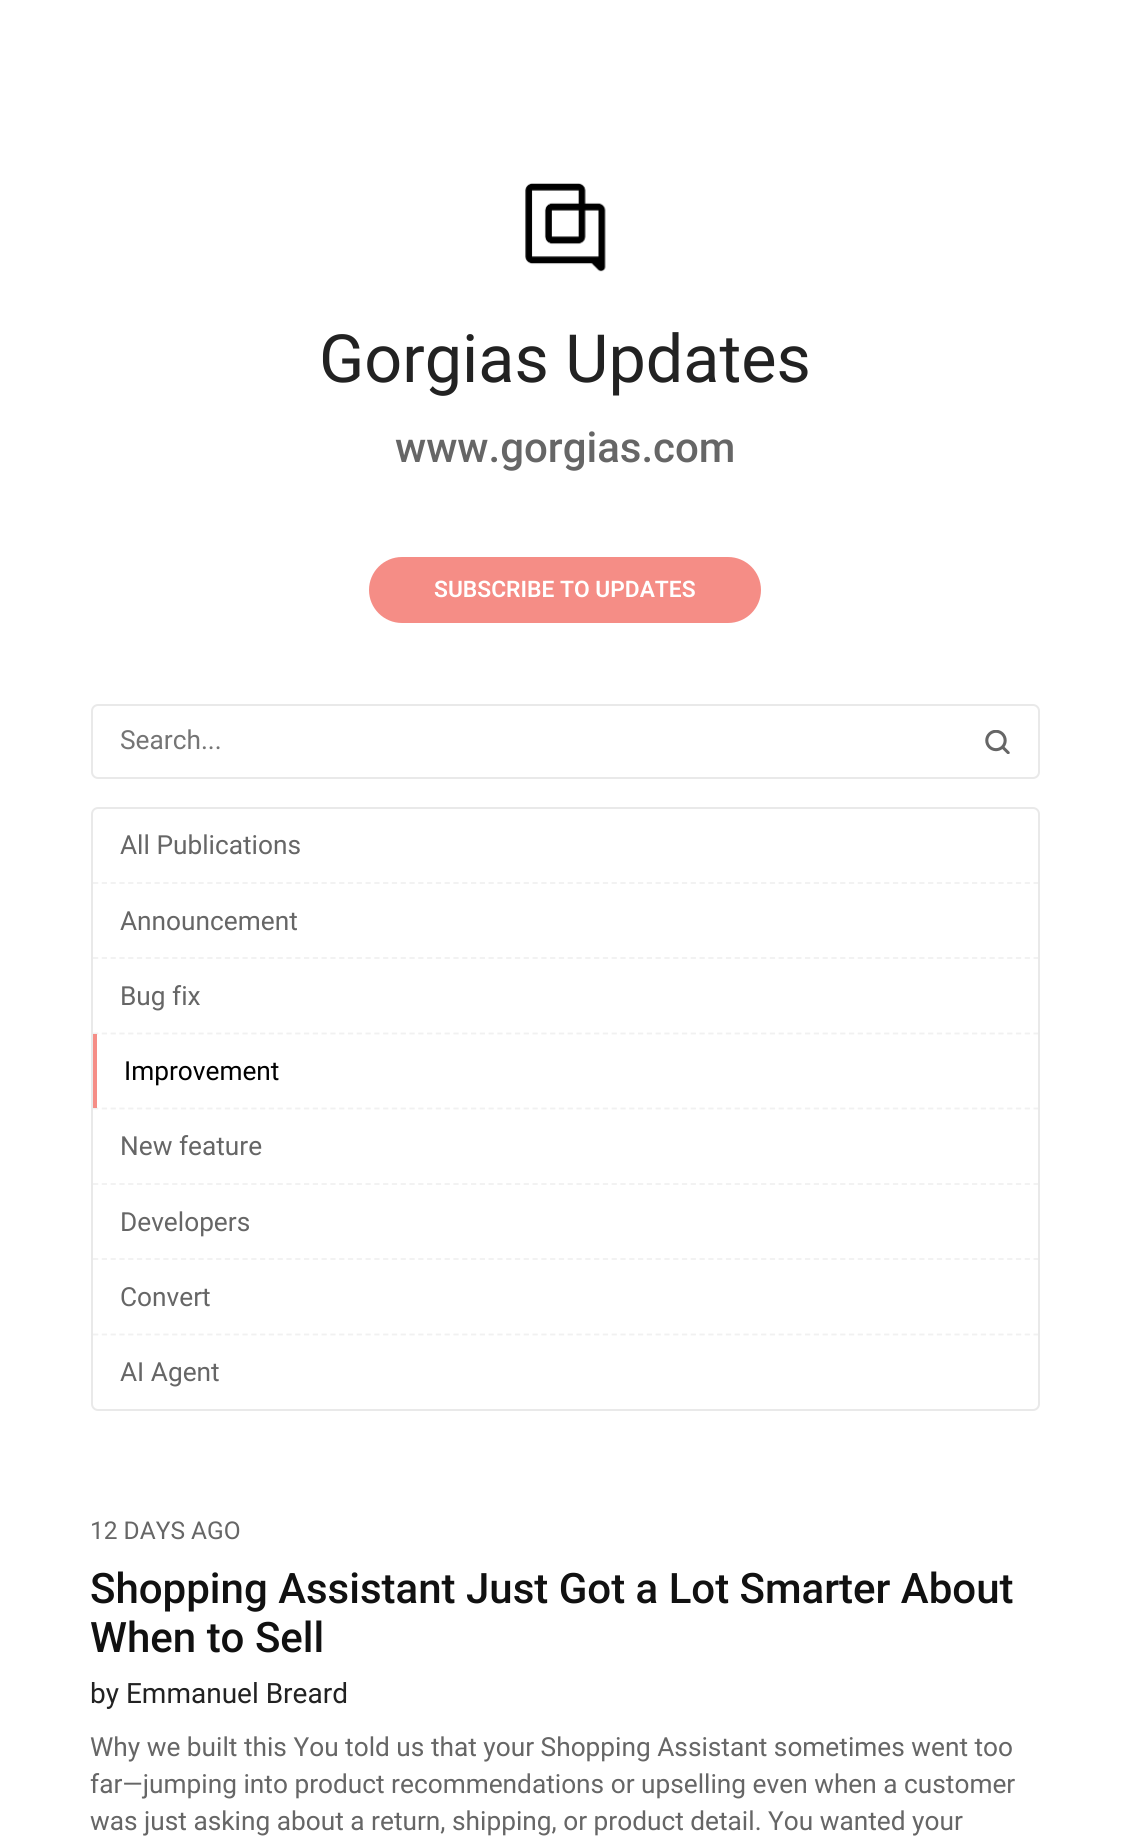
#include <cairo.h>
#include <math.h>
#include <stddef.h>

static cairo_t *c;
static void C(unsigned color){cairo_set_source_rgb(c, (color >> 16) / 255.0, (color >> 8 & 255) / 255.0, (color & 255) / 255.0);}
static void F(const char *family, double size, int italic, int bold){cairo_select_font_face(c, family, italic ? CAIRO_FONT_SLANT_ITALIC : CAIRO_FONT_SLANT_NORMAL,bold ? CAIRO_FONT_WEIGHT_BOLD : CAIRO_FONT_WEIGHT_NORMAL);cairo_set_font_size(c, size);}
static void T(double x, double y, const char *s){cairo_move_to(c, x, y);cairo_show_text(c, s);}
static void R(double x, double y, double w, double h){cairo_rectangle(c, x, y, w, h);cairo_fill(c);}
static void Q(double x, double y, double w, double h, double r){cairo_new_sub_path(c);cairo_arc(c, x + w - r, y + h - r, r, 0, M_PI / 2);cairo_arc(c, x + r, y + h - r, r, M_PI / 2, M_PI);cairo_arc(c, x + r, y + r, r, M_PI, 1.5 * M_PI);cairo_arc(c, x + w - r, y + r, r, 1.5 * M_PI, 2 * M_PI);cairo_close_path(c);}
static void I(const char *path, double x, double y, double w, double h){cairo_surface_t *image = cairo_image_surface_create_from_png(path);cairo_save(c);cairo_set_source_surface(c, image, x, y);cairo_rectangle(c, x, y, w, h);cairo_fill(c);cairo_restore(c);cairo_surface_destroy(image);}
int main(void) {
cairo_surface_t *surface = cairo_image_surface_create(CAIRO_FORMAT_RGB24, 1129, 1845);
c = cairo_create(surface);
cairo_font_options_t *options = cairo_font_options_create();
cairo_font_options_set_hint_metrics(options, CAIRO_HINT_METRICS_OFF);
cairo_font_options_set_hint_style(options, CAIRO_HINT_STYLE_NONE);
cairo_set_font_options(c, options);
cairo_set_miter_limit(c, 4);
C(0xffffff);
cairo_paint(c);
I("1.png",525,183,81,89);
F("Roboto",66.5,0,0);
C(0x222222);
T(319,382,"Gorgias Updates");
F("Roboto Medium",42,0,0);
C(0x666666);
T(395,462,"www.gorgias.com");
C(0xf58d86);
Q(369,557,392,66,33);
cairo_fill(c);
F("Roboto SemiBold",22.75,0,0);
C(0xffffff);
T(434,597,"SUBSCRIBE TO UPDATES");
Q(92,705,947,73,6);
C(0xe9e9e9);
cairo_stroke(c);
F("Roboto",26.25,0,0);
C(0x757575);
T(120,749,"Search...");
I("2.png",985,730,25,24);
Q(92,808,947,602,6);
C(0xe9e9e9);
cairo_stroke(c);
cairo_new_path(c);
cairo_move_to(c,93,883);
cairo_line_to(c,1038,883);
C(0xf1f1f1);
cairo_set_line_width(c,1.8);
cairo_set_dash(c,(double[]){5.25,3.54},2,0);
cairo_stroke(c);
C(0x666666);
T(120,854,"All Publications");
cairo_new_path(c);
cairo_move_to(c,93,958);
cairo_line_to(c,1038,958);
C(0xf1f1f1);
cairo_stroke(c);
C(0x666666);
T(120,930,"Announcement");
cairo_new_path(c);
cairo_move_to(c,93,1033.5);
cairo_line_to(c,1038,1033.5);
C(0xf1f1f1);
cairo_stroke(c);
C(0x666666);
T(120,1005,"Bug fix");
cairo_new_path(c);
cairo_move_to(c,93,1108.5);
cairo_line_to(c,1038,1108.5);
C(0xf1f1f1);
cairo_stroke(c);
C(0xf58d86);
R(93,1034,4,74);
C(0x000000);
T(124,1080,"Improvement");
cairo_new_path(c);
cairo_move_to(c,93,1184);
cairo_line_to(c,1038,1184);
C(0xf1f1f1);
cairo_stroke(c);
C(0x666666);
T(120,1155,"New feature");
cairo_new_path(c);
cairo_move_to(c,93,1259);
cairo_line_to(c,1038,1259);
C(0xf1f1f1);
cairo_stroke(c);
C(0x666666);
T(120,1231,"Developers");
cairo_new_path(c);
cairo_move_to(c,93,1334.5);
cairo_line_to(c,1038,1334.5);
C(0xf1f1f1);
cairo_stroke(c);
C(0x666666);
T(120,1306,"Convert");
T(120,1381,"AI Agent");
F("Roboto",24.5,0,0);
T(90,1539,"12 DAYS AGO");
F("Roboto Medium",42,0,0);
C(0x111111);
T(90,1603,"Shopping Assistant Just Got a Lot Smarter About");
T(90,1652,"When to Sell");
F("Roboto",28,0,0);
C(0x222222);
T(90,1703,"by Emmanuel Breard");
F("Roboto",26.25,0,0);
C(0x666666);
T(90,1756,"Why we built this You told us that your Shopping Assistant sometimes went too");
T(90,1793,"far—jumping into product recommendations or upselling even when a customer");
T(90,1830,"was just asking about a return, shipping, or product detail. You wanted your");
cairo_surface_write_to_png(surface, "o.png");
cairo_font_options_destroy(options);
cairo_destroy(c);
cairo_surface_destroy(surface);
return 0;
}
